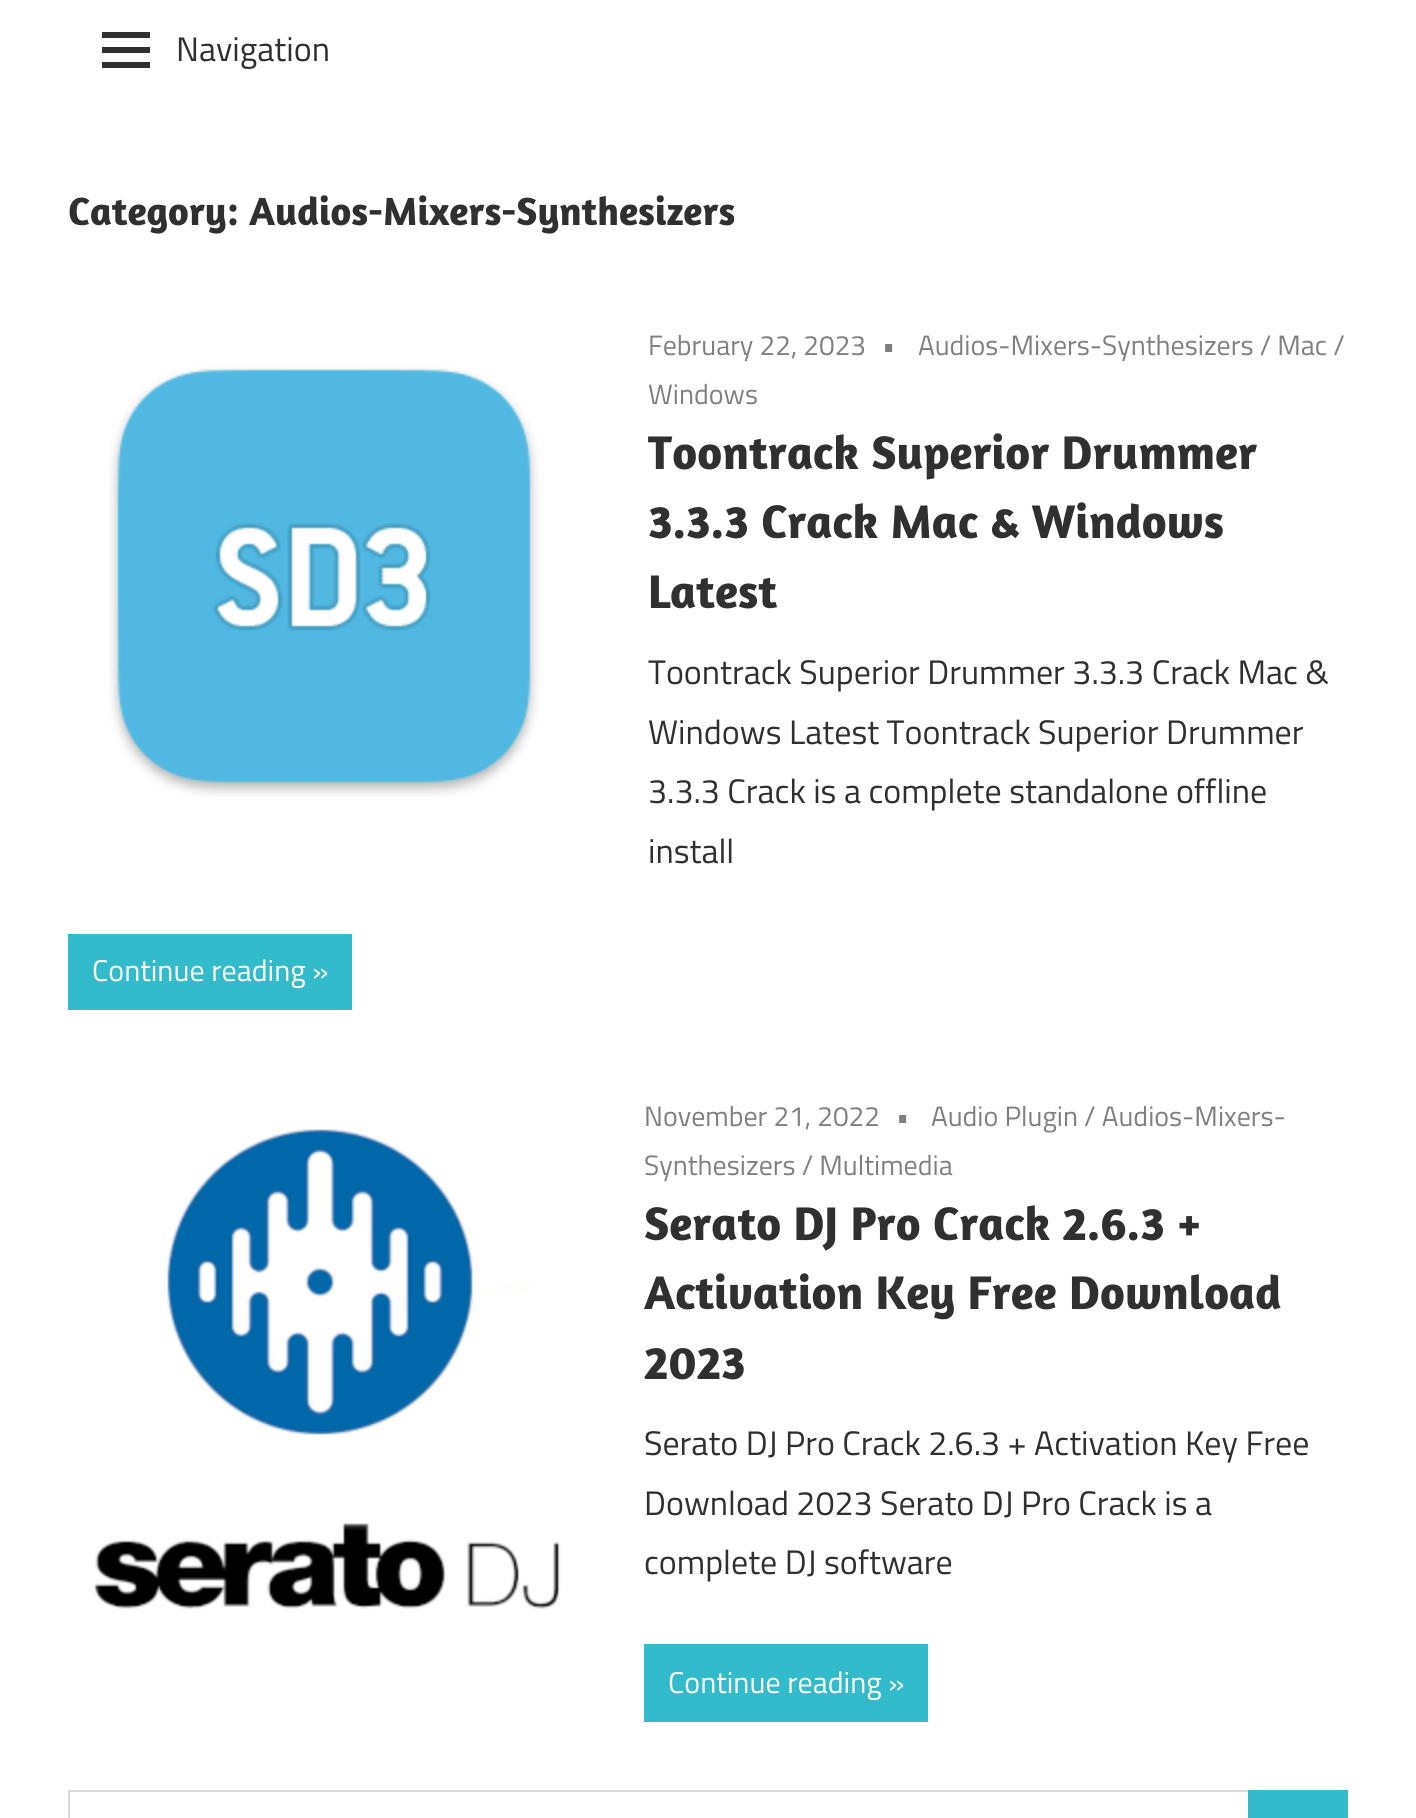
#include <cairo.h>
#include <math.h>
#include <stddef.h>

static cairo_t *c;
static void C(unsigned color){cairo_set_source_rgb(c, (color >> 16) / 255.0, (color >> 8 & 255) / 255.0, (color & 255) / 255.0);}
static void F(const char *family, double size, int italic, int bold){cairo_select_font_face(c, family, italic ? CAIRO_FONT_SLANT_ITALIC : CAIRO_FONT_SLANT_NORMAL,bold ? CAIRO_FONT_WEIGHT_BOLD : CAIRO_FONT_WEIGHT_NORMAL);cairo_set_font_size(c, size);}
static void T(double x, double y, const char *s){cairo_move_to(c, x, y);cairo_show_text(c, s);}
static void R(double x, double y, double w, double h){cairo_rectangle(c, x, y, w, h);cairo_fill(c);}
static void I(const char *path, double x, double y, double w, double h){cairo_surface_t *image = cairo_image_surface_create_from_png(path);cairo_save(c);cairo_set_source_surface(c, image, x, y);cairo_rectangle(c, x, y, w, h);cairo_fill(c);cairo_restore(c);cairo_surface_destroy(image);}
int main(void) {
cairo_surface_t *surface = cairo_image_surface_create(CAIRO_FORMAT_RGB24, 1416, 1818);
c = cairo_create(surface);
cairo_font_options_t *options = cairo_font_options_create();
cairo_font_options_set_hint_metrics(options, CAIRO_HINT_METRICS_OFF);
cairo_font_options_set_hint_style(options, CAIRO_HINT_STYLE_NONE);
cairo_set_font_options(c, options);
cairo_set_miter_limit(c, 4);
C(0xffffff);
cairo_paint(c);
I("1.png",102,32,48,36);
F("Titillium Web",34,0,0);
C(0x303030);
T(176,61,"Navigation");
F("Amaranth",40,0,1);
T(68,225,"Category: Audios-Mixers-Synthesizers");
I("2.png",109,367,430,430);
F("Titillium Web",28,0,0);
C(0x808080);
T(648,355,"February 22, 2023");
T(882,355,"•");
T(918,355,"Audios-Mixers-Synthesizers / Mac /");
T(648,404,"Windows");
F("Amaranth",48,0,1);
C(0x303030);
T(648,469,"Toontrack Superior Drummer");
T(648,538,"3.3.3 Crack Mac & Windows");
T(648,608,"Latest");
F("Titillium Web",34,0,0);
T(648,684,"Toontrack Superior Drummer 3.3.3 Crack Mac &");
T(648,744,"Windows Latest Toontrack Superior Drummer");
T(648,803,"3.3.3 Crack is a complete standalone offline");
T(648,863,"install");
C(0x33bbcc);
R(68,934,284,76);
F("Titillium Web",30,0,0);
C(0xffffff);
T(92,981,"Continue reading »");
I("3.png",93,1129,468,480);
F("Titillium Web",28,0,0);
C(0x808080);
T(644,1126,"November 21, 2022");
T(896,1126,"•");
T(931,1126,"Audio Plugin / Audios-Mixers-");
T(644,1175,"Synthesizers / Multimedia");
F("Amaranth",48,0,1);
C(0x303030);
T(644,1240,"Serato DJ Pro Crack 2.6.3 +");
T(644,1309,"Activation Key Free Download");
T(644,1379,"2023");
F("Titillium Web",34,0,0);
T(644,1455,"Serato DJ Pro Crack 2.6.3 + Activation Key Free");
T(644,1515,"Download 2023 Serato DJ Pro Crack is a");
T(644,1574,"complete DJ software");
C(0x33bbcc);
R(644,1644,284,78);
F("Titillium Web",30,0,0);
C(0xffffff);
T(668,1693,"Continue reading »");
cairo_rectangle(c,69,1791,1180,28);
C(0xd9d9d9);
cairo_stroke(c);
C(0x33bbcc);
R(1248,1790,100,28);
cairo_surface_write_to_png(surface, "o.png");
cairo_font_options_destroy(options);
cairo_destroy(c);
cairo_surface_destroy(surface);
return 0;
}
